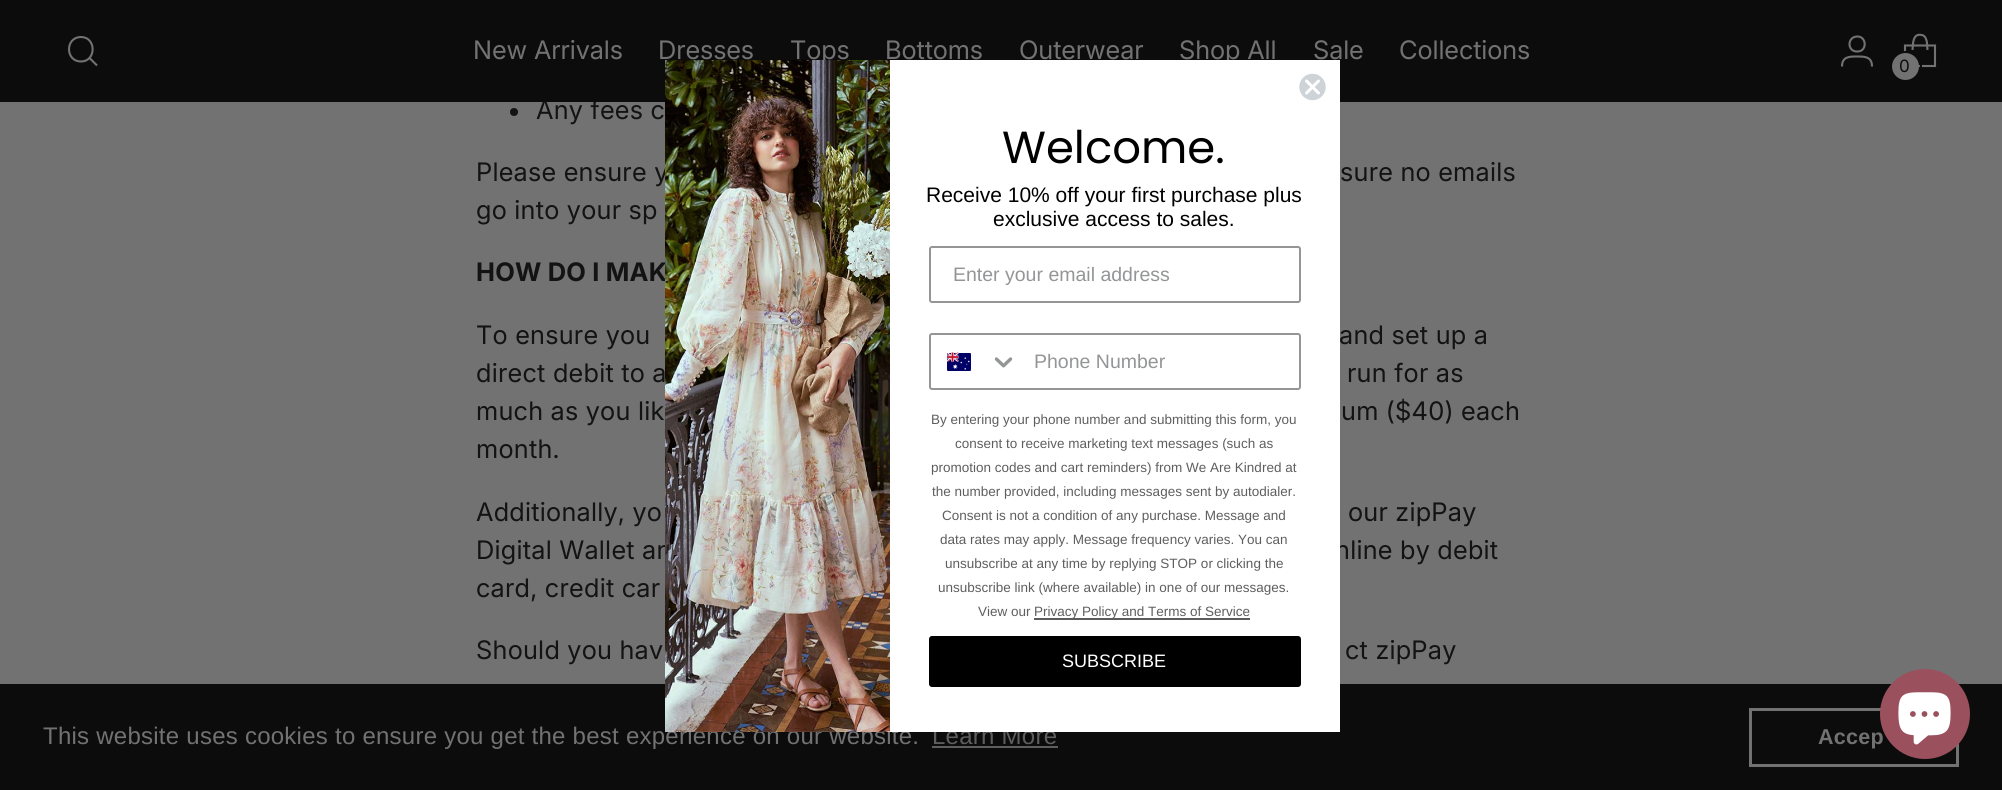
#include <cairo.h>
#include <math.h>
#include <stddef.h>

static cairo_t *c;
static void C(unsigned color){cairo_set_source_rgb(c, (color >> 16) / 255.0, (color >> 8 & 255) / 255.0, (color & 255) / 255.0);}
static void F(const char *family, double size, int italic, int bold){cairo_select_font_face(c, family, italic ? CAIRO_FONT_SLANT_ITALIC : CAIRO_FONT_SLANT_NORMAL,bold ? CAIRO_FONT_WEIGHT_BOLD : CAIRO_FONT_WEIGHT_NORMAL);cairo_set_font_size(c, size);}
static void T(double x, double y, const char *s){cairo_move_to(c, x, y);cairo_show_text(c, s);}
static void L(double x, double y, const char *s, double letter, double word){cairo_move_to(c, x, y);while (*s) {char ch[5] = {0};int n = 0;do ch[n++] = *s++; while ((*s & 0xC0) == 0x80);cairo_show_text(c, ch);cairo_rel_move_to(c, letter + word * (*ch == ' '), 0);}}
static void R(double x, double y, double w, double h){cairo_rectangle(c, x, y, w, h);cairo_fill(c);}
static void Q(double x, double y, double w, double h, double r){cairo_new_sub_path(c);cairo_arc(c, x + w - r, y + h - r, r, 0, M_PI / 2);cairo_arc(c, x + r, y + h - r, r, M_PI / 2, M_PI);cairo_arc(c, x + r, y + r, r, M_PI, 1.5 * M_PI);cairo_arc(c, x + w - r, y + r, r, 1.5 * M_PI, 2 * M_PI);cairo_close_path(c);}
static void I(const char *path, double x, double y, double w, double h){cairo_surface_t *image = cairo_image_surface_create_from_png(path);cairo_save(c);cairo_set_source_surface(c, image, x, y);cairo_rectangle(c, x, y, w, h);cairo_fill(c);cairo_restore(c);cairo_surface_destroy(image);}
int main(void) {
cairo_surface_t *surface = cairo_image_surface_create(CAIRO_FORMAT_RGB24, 2002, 790);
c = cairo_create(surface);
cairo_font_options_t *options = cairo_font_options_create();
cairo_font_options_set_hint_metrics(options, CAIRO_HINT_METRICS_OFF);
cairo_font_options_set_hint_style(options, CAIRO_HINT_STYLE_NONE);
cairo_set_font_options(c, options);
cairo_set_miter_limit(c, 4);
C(0x727272);
cairo_paint(c);
F("Inter",25.5,0,0);
C(0x131313);
L(536,119,"Any fees c",.25,0);
C(0x0c0c0c);
R(0,0,2002,102);
cairo_new_path(c);
cairo_move_to(c,81,61.5);
cairo_curve_to(c,96.5,61.5,96.5,37,81,37);
cairo_curve_to(c,65,37,65,61.5,81,61.5);
cairo_close_path(c);
C(0x727272);
cairo_set_line_width(c,2.1);
cairo_set_line_cap(c,CAIRO_LINE_CAP_ROUND);
cairo_stroke(c);
cairo_new_path(c);
cairo_move_to(c,89.5,58);
cairo_line_to(c,97,65.5);
cairo_set_line_cap(c,CAIRO_LINE_CAP_BUTT);
cairo_stroke(c);
L(473,59,"New Arrivals",-.1,0);
L(658,59,"Dresses",-.1,0);
L(790,59,"Tops",-.1,0);
L(885,59,"Bottoms",-.1,0);
L(1019,59,"Outerwear",-.1,0);
L(1179,59,"Shop All",-.1,0);
L(1313,59,"Sale",-.1,0);
L(1399,59,"Collections",-.1,0);
cairo_new_path(c);
cairo_move_to(c,1857,51.5);
cairo_curve_to(c,1867.5,52,1867,36,1857,36.5);
cairo_curve_to(c,1847,37,1847,51.5,1857,51.5);
cairo_close_path(c);
cairo_move_to(c,1842,66.5);
cairo_curve_to(c,1842,56.5,1849.5,56.5,1857,56.5);
cairo_curve_to(c,1864.5,56.5,1872,56.5,1872,66.5);
cairo_stroke(c);
cairo_new_path(c);
cairo_move_to(c,1927.5,50);
cairo_curve_to(c,1927,46.5,1927.5,42.5,1926,39);
cairo_curve_to(c,1925.5,37,1923.5,35,1921.5,35);
cairo_curve_to(c,1912.5,33,1913,44.5,1912.5,50);
cairo_set_line_join(c,CAIRO_LINE_JOIN_BEVEL);
cairo_stroke(c);
cairo_new_path(c);
cairo_move_to(c,1935,66);
cairo_line_to(c,1935,45.5);
cairo_line_to(c,1905,45.5);
cairo_line_to(c,1905,66);
cairo_close_path(c);
cairo_set_line_join(c,CAIRO_LINE_JOIN_MITER);
cairo_stroke(c);
cairo_arc(c,1906,67,15,0,2 * M_PI);
C(0x0c0c0c);
cairo_set_line_width(c,2);
cairo_stroke(c);
C(0x727272);
cairo_arc(c,1905.5,66.5,13.5,0,2 * M_PI);
cairo_fill(c);
F("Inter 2",17,0,0);
C(0x0c0c0c);
L(1899,72,"0",.25,0);
C(0x131313);
cairo_new_path(c);
cairo_arc(c,514,112,4,0,2 * M_PI);
cairo_fill(c);
F("Inter",25.5,0,0);
L(476,181,"Please ensure y",.25,0);
L(1340,181,"sure no emails",.25,0);
L(476,219,"go into your sp",.25,0);
F("Inter",25.5,0,1);
L(476,281,"HOW DO I MAK",.25,0);
F("Inter",25.5,0,0);
L(476,344,"To ensure you",.25,0);
L(1339,344,"and set up a",.25,0);
L(476,382,"direct debit to a",.25,0);
L(1347,382,"run for as",.25,0);
L(476,420,"much as you lik",.25,0);
L(1341,420,"um ($40) each",.25,0);
L(476,458,"month.",.25,0);
L(476,521,"Additionally, yo",.25,0);
L(1348,521,"our zipPay",.25,0);
L(476,559,"Digital Wallet an",.25,0);
L(1335,559,"nline by debit",.25,0);
L(476,597,"card, credit car",.25,0);
L(476,659,"Should you hav",.25,0);
L(1345,659,"ct zipPay",.25,0);
C(0x0c0c0c);
R(0,684,2002,106);
F("Liberation Sans",24,0,0);
C(0x727272);
L(43,744,"This website uses cookies to ensure you get the best experience on our website.",.25,0);
C(0x5e5e5e);
L(932,744,"Learn More",.25,0);
C(0xffffff);
R(665,60,675,672);
C(0xced3d8);
cairo_new_path(c);
cairo_arc(c,1312.5,87,14,0,2 * M_PI);
cairo_fill_preserve(c);
C(0xffffff);
cairo_set_line_width(c,1.5);
cairo_stroke(c);
cairo_new_path(c);
cairo_move_to(c,1306.5,81);
cairo_line_to(c,1318.5,93);
cairo_move_to(c,1306.5,93);
cairo_line_to(c,1318.5,81);
cairo_close_path(c);
cairo_set_line_width(c,3);
cairo_set_line_cap(c,CAIRO_LINE_CAP_ROUND);
cairo_set_line_join(c,CAIRO_LINE_JOIN_ROUND);
cairo_stroke(c);
I("1.png",665,60,225,672);
F("Poppins",45,0,0);
C(0x000000);
T(1002,163,"Welcome.");
F("Liberation Sans",21,0,0);
T(926,202,"Receive 10% off your first purchase plus");
T(993,226,"exclusive access to sales.");
Q(930,247,370,55,2);
C(0x949596);
cairo_set_line_width(c,2);
cairo_set_line_cap(c,CAIRO_LINE_CAP_BUTT);
cairo_set_line_join(c,CAIRO_LINE_JOIN_MITER);
cairo_stroke(c);
F("Liberation Sans",19.5,0,0);
T(953,281,"Enter your email address");
Q(930,334,370,55,2);
cairo_stroke(c);
I("2.png",947,352,24,19);
I("3.png",994,357,19,11);
T(1034,368,"Phone Number");
F("Liberation Sans",13.5,0,0);
C(0x5e5e5e);
T(931,424,"By entering your phone number and submitting this form, you");
T(955,448,"consent to receive marketing text messages (such as");
T(931,472,"promotion codes and cart reminders) from We Are Kindred at");
T(932,496,"the number provided, including messages sent by autodialer.");
T(942,520,"Consent is not a condition of any purchase. Message and");
T(940,544,"data rates may apply. Message frequency varies. You can");
T(945,568,"unsubscribe at any time by replying STOP or clicking the");
T(938,592,"unsubscribe link (where available) in one of our messages.");
T(978,616,"View our");
C(0x5c5c5c);
R(1034,618,216,2);
C(0x5e5e5e);
T(1034,616,"Privacy Policy and Terms of Service");
C(0x000000);
Q(929,636,372,51,3);
cairo_fill(c);
F("Liberation Sans",18,0,0);
C(0xffffff);
T(1062,667,"SUBSCRIBE");
C(0x5e5e5e);
R(932,746,126,2);
cairo_rectangle(c,1750.5,709.5,207,56);
C(0x727272);
cairo_set_line_width(c,3);
cairo_stroke(c);
F("Liberation Sans",21.5,0,1);
L(1818,744,"Accep",.25,0);
C(0x9b515d);
cairo_new_path(c);
cairo_arc(c,1925,714,45,0,2 * M_PI);
cairo_fill(c);
I("4.png",1898,692,53,53);
cairo_surface_write_to_png(surface, "o.png");
cairo_font_options_destroy(options);
cairo_destroy(c);
cairo_surface_destroy(surface);
return 0;
}
